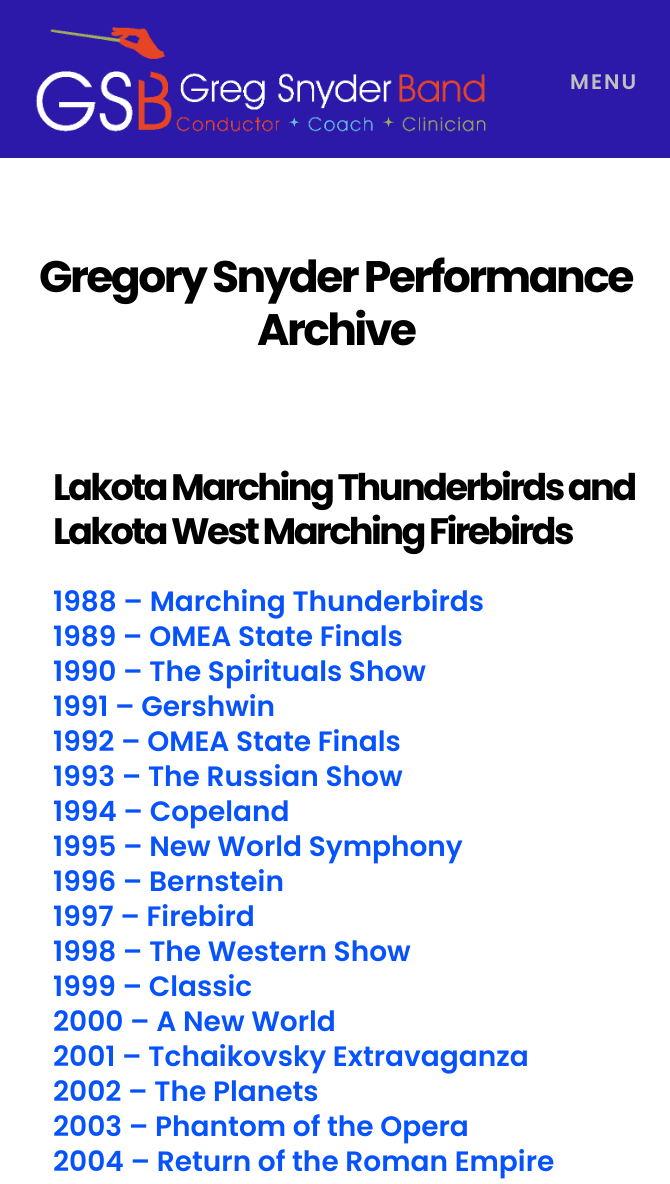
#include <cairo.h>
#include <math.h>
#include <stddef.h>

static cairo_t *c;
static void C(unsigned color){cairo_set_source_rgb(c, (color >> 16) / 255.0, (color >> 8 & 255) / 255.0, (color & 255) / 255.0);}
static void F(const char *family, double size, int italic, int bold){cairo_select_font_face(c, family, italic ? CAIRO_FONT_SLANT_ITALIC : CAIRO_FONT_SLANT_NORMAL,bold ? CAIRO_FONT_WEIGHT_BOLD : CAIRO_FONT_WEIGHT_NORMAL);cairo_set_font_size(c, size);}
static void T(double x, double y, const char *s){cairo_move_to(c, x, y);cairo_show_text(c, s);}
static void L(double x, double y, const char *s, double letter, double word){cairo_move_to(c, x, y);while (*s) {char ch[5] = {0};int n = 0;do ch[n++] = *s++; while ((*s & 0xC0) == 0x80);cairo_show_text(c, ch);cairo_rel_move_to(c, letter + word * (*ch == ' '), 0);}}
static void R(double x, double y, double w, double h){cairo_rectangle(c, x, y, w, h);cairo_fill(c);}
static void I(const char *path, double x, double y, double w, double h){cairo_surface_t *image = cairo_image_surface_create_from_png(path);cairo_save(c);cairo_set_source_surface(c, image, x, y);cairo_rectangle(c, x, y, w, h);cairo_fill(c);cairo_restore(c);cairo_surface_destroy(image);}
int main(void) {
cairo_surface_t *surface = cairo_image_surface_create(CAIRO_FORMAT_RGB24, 670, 1184);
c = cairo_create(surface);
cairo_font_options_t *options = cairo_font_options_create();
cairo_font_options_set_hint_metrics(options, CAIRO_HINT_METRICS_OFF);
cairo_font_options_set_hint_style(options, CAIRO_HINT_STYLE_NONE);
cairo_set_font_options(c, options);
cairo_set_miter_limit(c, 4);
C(0xffffff);
cairo_paint(c);
C(0x2c19aa);
R(0,0,670,158);
I("1.png",36,27,450,105);
F("Poppins SemiBold",21,0,0);
C(0xbfbfbf);
L(570,89,"MENU",2,0);
F("Poppins",44.1,0,1);
C(0x000000);
L(39,292,"Gregory Snyder Performance",-2.6,0);
L(257,345,"Archive",-2.6,0);
F("Poppins",36.75,0,1);
L(53,500,"Lakota Marching Thunderbirds and",-2.6,0);
L(53,544,"Lakota West Marching Firebirds",-2.6,0);
F("Poppins SemiBold",28,0,0);
C(0x0652fd);
T(53,611,"1988 – Marching Thunderbirds");
T(53,646,"1989 – OMEA State Finals");
T(53,681,"1990 – The Spirituals Show");
T(53,716,"1991 – Gershwin");
T(53,751,"1992 – OMEA State Finals");
T(53,786,"1993 – The Russian Show");
T(53,821,"1994 – Copeland");
T(53,856,"1995 – New World Symphony");
T(53,891,"1996 – Bernstein");
T(53,926,"1997 – Firebird");
T(53,961,"1998 – The Western Show");
T(53,996,"1999 – Classic");
T(53,1031,"2000 – A New World");
T(53,1066,"2001 – Tchaikovsky Extravaganza");
T(53,1101,"2002 – The Planets");
T(53,1136,"2003 – Phantom of the Opera");
T(53,1171,"2004 – Return of the Roman Empire");
cairo_surface_write_to_png(surface, "o.png");
cairo_font_options_destroy(options);
cairo_destroy(c);
cairo_surface_destroy(surface);
return 0;
}
